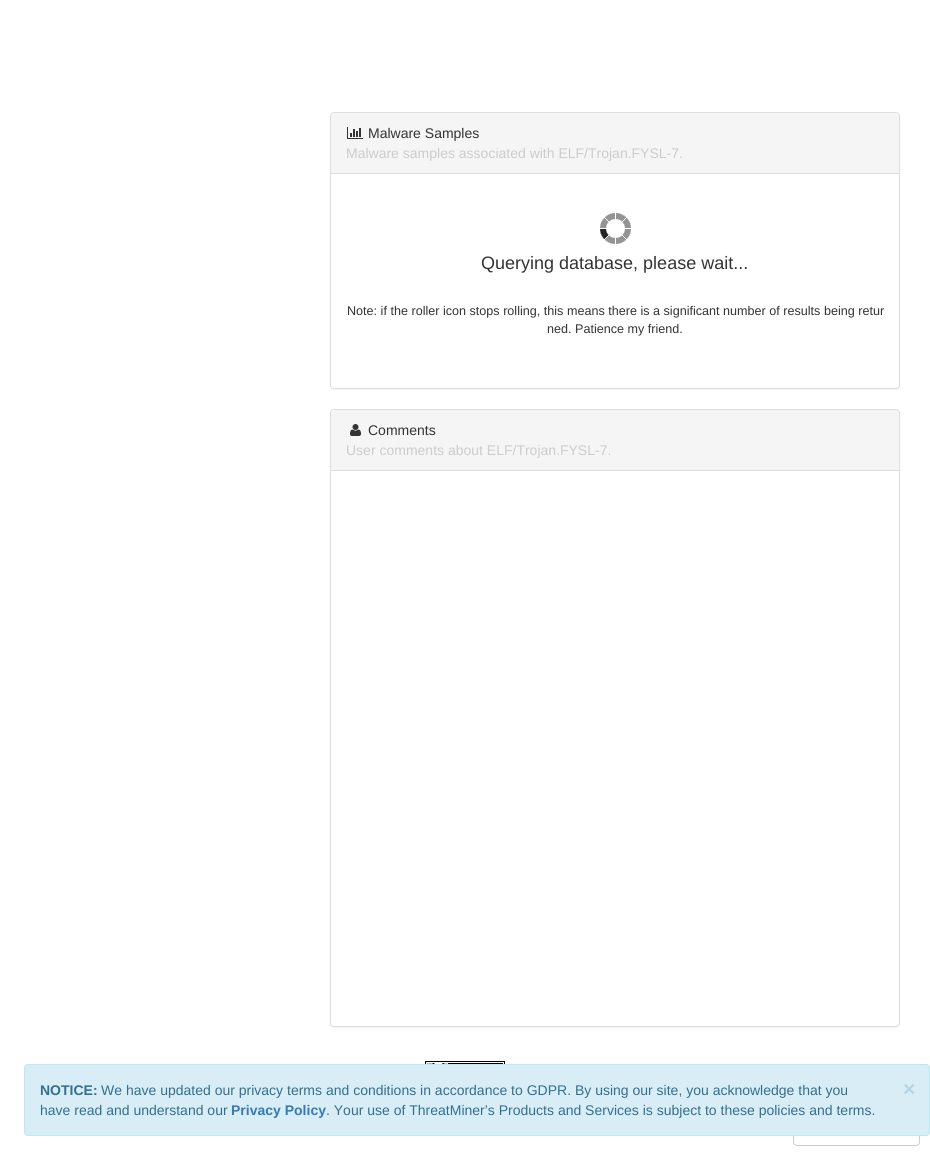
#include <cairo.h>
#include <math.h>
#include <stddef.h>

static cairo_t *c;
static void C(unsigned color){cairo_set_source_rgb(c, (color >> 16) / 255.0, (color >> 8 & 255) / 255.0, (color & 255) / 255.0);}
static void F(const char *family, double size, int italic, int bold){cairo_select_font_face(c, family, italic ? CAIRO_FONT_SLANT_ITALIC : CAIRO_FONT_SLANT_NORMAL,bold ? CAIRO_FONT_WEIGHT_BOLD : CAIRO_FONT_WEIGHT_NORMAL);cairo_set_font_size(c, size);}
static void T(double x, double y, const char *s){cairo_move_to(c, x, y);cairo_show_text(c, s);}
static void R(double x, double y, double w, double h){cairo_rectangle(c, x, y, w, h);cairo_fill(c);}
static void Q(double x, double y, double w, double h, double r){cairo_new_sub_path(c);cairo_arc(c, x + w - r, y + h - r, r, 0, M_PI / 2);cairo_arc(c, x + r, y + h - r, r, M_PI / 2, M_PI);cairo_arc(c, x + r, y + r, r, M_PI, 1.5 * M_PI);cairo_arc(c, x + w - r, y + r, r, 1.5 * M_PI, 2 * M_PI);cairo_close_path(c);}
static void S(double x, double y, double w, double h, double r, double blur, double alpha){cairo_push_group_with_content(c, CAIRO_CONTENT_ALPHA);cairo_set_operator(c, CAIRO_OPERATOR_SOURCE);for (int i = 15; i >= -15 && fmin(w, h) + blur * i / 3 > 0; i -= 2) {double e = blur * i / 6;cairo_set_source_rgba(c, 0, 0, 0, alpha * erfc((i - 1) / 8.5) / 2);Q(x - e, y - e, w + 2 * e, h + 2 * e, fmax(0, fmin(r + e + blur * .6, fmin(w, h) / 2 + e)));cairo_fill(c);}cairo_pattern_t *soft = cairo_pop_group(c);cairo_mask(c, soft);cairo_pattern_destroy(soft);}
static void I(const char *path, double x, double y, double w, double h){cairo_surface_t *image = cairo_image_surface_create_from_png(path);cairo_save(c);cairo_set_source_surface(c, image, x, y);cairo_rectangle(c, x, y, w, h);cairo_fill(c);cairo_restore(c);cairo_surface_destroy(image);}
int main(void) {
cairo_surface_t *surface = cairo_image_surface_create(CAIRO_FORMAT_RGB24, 930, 1156);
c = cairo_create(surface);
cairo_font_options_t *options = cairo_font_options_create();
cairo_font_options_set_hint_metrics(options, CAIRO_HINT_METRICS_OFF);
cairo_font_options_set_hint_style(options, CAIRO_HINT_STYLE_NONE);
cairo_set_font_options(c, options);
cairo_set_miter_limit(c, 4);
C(0xffffff);
cairo_paint(c);
C(0x000000);
S(330,113,570,277,4,.5,.05);
C(0xffffff);
Q(330.5,112.5,569,276,3.5);
cairo_fill_preserve(c);
C(0xdddddd);
cairo_set_line_width(c,1);
cairo_stroke(c);
C(0xf5f5f5);
cairo_new_path(c);
cairo_move_to(c,334,113);
cairo_line_to(c,896,113);
cairo_curve_to(c,897.5,113,899,114.5,899,116);
cairo_line_to(c,899,174);
cairo_line_to(c,331,174);
cairo_line_to(c,331,116);
cairo_curve_to(c,331,114.5,332.5,113,334,113);
cairo_close_path(c);
cairo_fill(c);
C(0xdddddd);
R(331,173,568,1);
I("1.png",347,127,16,12);
F("Liberation Sans",14,0,0);
C(0x333333);
T(368,138,"Malware Samples");
C(0xcccccc);
T(346,158,"Malware samples associated with ELF/Trojan.FYSL-7.");
I("2.png",600,213,31,31);
F("Liberation Sans",18,0,0);
C(0x333333);
T(481,269,"Querying database, please wait...");
F("Liberation Sans",12.6,0,0);
T(347,315,"Note: if the roller icon stops rolling, this means there is a significant number of results being retur");
T(547,333,"ned. Patience my friend.");
C(0x000000);
S(330,410,570,618,4,.5,.05);
C(0xffffff);
Q(330.5,409.5,569,617,3.5);
cairo_fill_preserve(c);
C(0xdddddd);
cairo_stroke(c);
C(0xf5f5f5);
cairo_new_path(c);
cairo_move_to(c,334,410);
cairo_line_to(c,896,410);
cairo_curve_to(c,897.5,410,899,411.5,899,413);
cairo_line_to(c,899,471);
cairo_line_to(c,331,471);
cairo_line_to(c,331,413);
cairo_curve_to(c,331,411.5,332.5,410,334,410);
cairo_close_path(c);
cairo_fill(c);
C(0xdddddd);
R(331,470,568,1);
I("3.png",350,424,11,12);
F("Liberation Sans",14,0,0);
C(0x333333);
T(368,435,"Comments");
C(0xcccccc);
T(346,455,"User comments about ELF/Trojan.FYSL-7.");
I("4.png",425,1061,80,3);
Q(793.5,1112.5,126,33,3.5);
cairo_stroke(c);
C(0xd9edf7);
Q(24.5,1064.5,905,71,3.5);
cairo_fill_preserve(c);
C(0xbce8f1);
cairo_stroke(c);
F("Liberation Sans",14,0,1);
C(0x31708f);
T(40,1095,"NOTICE:");
F("Liberation Sans",14,0,0);
T(101,1095,"We have updated our privacy terms and conditions in accordance to GDPR. By using our site, you acknowledge that you");
F("Liberation Sans",21,0,1);
C(0xb7d4e2);
T(903,1096,"×");
F("Liberation Sans",14,0,0);
C(0x31708f);
T(40,1115,"have read and understand our");
F("Liberation Sans",14,0,1);
C(0x337ab7);
T(231,1115,"Privacy Policy");
F("Liberation Sans",14,0,0);
C(0x31708f);
T(326,1115,". Your use of ThreatMiner’s Products and Services is subject to these policies and terms.");
cairo_surface_write_to_png(surface, "o.png");
cairo_font_options_destroy(options);
cairo_destroy(c);
cairo_surface_destroy(surface);
return 0;
}
